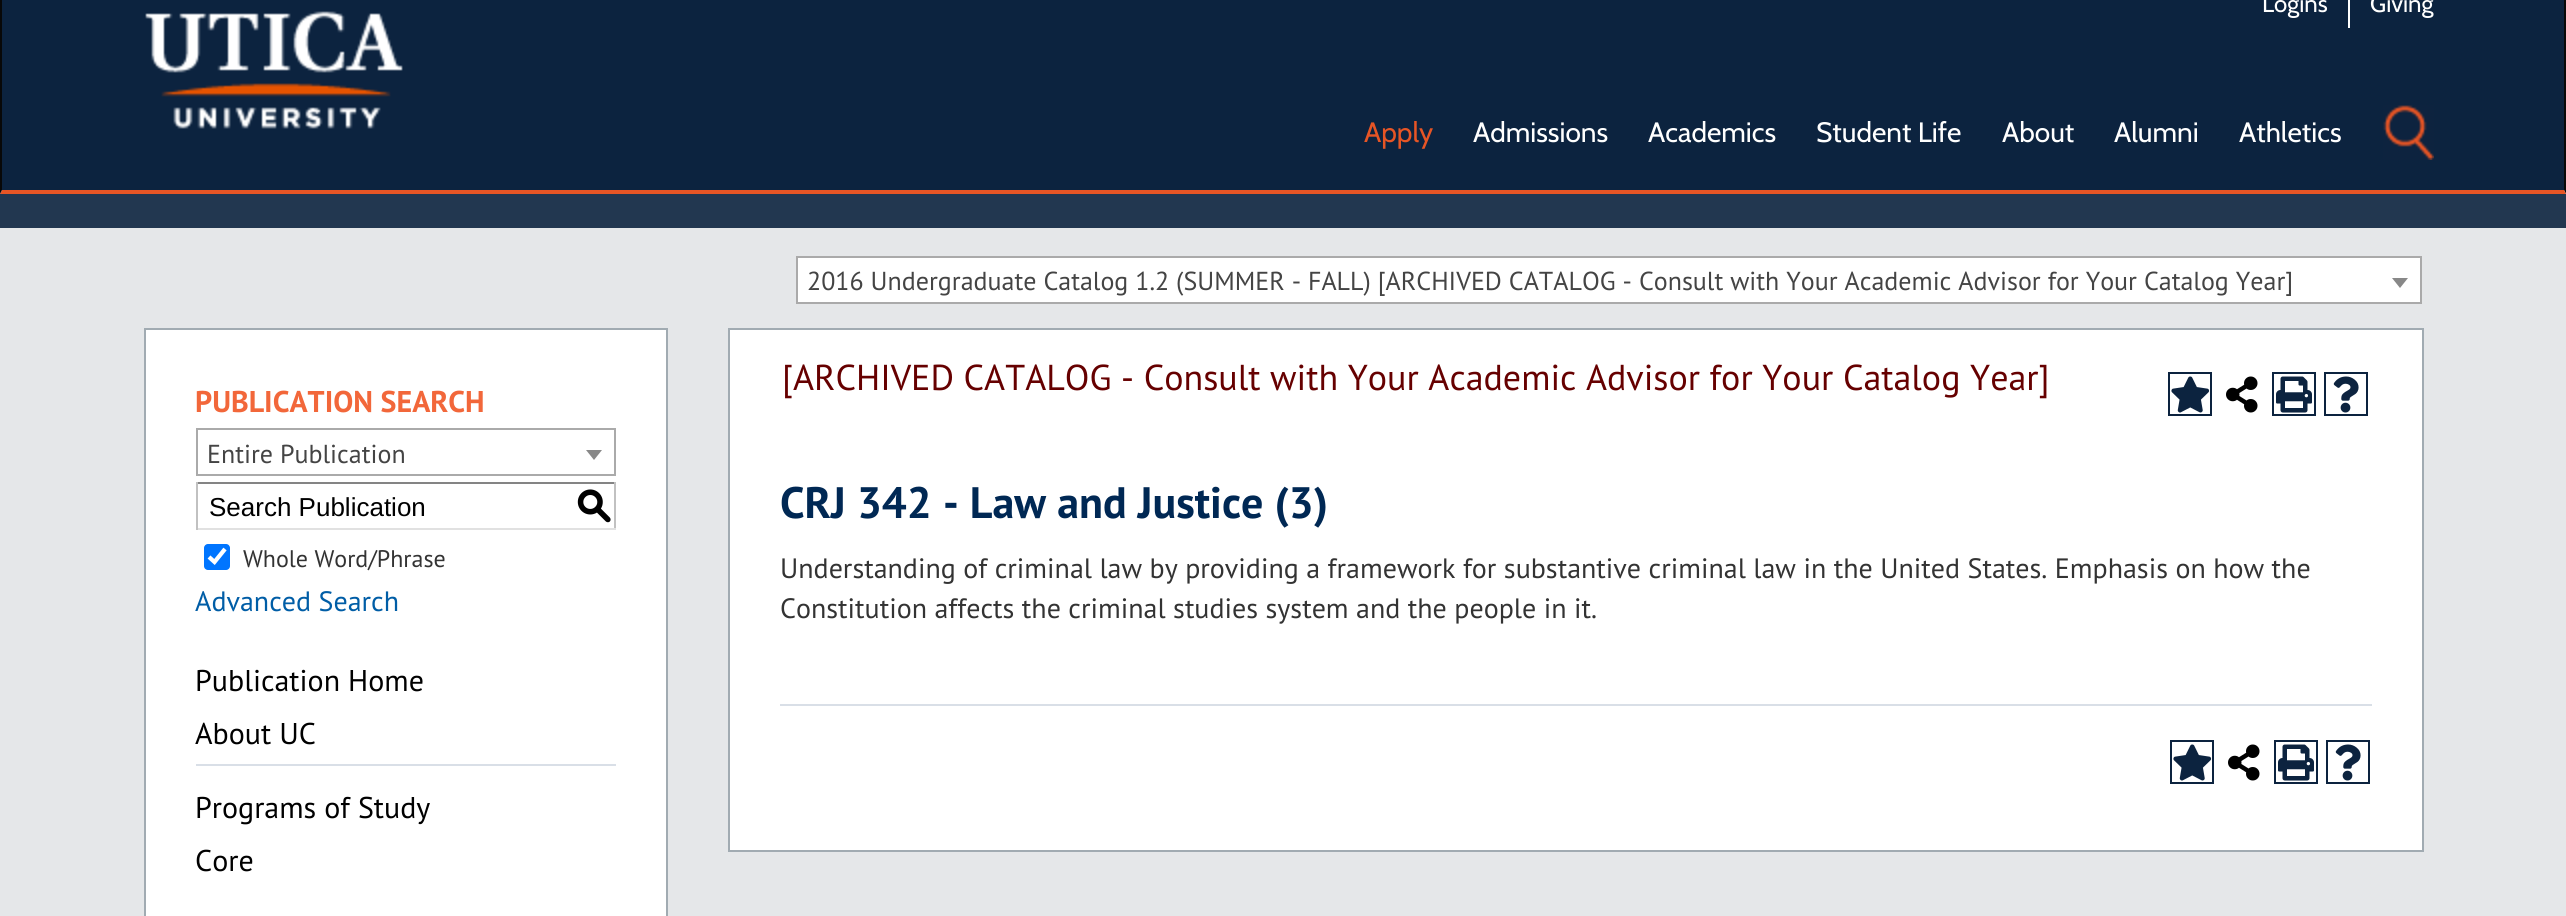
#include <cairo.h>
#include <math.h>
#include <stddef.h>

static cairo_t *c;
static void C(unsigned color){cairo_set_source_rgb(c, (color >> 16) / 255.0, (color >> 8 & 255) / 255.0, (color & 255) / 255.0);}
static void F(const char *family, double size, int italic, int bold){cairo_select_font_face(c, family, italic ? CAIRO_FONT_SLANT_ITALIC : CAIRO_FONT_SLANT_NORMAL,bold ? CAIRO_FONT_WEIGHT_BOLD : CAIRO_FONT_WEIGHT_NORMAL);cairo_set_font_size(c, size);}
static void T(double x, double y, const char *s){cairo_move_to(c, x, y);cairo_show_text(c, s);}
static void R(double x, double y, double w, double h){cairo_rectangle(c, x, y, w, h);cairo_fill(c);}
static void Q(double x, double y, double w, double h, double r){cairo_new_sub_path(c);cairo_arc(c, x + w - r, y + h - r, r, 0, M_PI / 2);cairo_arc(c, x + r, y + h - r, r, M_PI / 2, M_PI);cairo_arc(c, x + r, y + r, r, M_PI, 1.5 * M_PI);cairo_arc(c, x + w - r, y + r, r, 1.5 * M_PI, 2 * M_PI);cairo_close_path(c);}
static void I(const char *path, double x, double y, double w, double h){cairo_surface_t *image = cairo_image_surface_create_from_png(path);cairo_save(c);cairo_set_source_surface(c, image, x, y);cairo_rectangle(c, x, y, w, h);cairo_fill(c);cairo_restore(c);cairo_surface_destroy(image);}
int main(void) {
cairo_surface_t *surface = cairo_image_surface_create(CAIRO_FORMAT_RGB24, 2566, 916);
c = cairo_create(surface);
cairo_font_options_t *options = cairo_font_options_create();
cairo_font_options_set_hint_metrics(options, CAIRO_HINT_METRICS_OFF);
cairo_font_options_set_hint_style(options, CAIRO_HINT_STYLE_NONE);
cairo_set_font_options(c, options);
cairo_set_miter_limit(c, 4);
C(0xe5e7e9);
cairo_paint(c);
C(0x0c233f);
R(2,0,2562,190);
C(0x080808);
cairo_new_path(c);
cairo_move_to(c,2566,-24);
cairo_line_to(c,2566,194);
cairo_line_to(c,2564,190);
cairo_line_to(c,2564,-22);
cairo_close_path(c);
cairo_fill(c);
C(0xe75525);
cairo_new_path(c);
cairo_move_to(c,2566,194);
cairo_line_to(c,0,194);
cairo_line_to(c,2,190);
cairo_line_to(c,2564,190);
cairo_close_path(c);
cairo_fill(c);
C(0x080808);
cairo_new_path(c);
cairo_move_to(c,0,194);
cairo_line_to(c,0,-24);
cairo_line_to(c,2,-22);
cairo_line_to(c,2,190);
cairo_close_path(c);
cairo_fill(c);
I("1.png",145,11,258,118);
C(0xffffff);
R(2348,0,2,28);
F("Cabin",24,0,0);
T(2262,12,"Logins");
T(2370,12,"Giving");
F("Cabin",28,0,0);
C(0xe75525);
T(1364,142,"Apply");
C(0xffffff);
T(1473,142,"Admissions");
T(1648,142,"Academics");
T(1816,142,"Student Life");
T(2002,142,"About");
T(2114,142,"Alumni");
T(2239,142,"Athletics");
I("2.png",2383,105,51,55);
C(0x223750);
R(0,194,2566,34);
C(0xffffff);
cairo_rectangle(c,797,257,1624,46);
cairo_fill_preserve(c);
C(0xaaaaaa);
cairo_stroke(c);
F("PT Sans",26,0,0);
C(0x444444);
T(807,290,"2016 Undergraduate Catalog 1.2 (SUMMER - FALL) [ARCHIVED CATALOG - Consult with Your Academic Advisor for Your Catalog Year]");
C(0x888888);
cairo_new_path(c);
cairo_move_to(c,2392,278);
cairo_line_to(c,2408,278);
cairo_line_to(c,2400,288);
cairo_close_path(c);
cairo_fill(c);
C(0xffffff);
cairo_rectangle(c,145,329,522,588);
cairo_fill_preserve(c);
C(0xa1abb2);
cairo_stroke(c);
F("PT Sans",30,0,1);
C(0xf2673a);
T(195,412,"PUBLICATION SEARCH");
cairo_rectangle(c,197,429,418,46);
C(0xaaaaaa);
cairo_stroke(c);
F("PT Sans",26,0,0);
C(0x444444);
T(207,463,"Entire Publication");
C(0x888888);
cairo_new_path(c);
cairo_move_to(c,586,450);
cairo_line_to(c,602,450);
cairo_line_to(c,594,460);
cairo_close_path(c);
cairo_fill(c);
C(0x848484);
R(196,482,420,2);
C(0xc1c1c1);
R(614,482,2,48);
C(0xe1e1e1);
R(196,528,420,2);
C(0xc1c1c1);
R(196,482,2,48);
F("Liberation Sans",26,0,0);
C(0x000000);
T(209,516,"Search Publication");
F("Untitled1 Medium",36,0,0);
T(576,517,"S");
C(0x0075ff);
Q(204,544,26,26,4);
cairo_fill(c);
cairo_new_path(c);
cairo_move_to(c,209,557);
cairo_line_to(c,214.5,562);
cairo_line_to(c,225,549);
C(0xffffff);
cairo_set_line_width(c,4.2);
cairo_stroke(c);
F("PT Sans",24,0,0);
C(0x333333);
T(243,567,"Whole Word/Phrase");
F("PT Sans",28,0,0);
C(0x005da6);
T(195,611,"Advanced Search");
F("PT Sans",30,0,0);
C(0x000000);
T(195,691,"Publication Home");
T(195,744,"About UC");
C(0xd9dfe7);
R(196,764,420,2);
C(0x000000);
T(195,818,"Programs of Study");
T(195,871,"Core");
C(0xffffff);
cairo_rectangle(c,729,329,1694,522);
cairo_fill_preserve(c);
C(0xa1abb2);
cairo_set_line_width(c,2);
cairo_stroke(c);
F("PT Sans",36,0,0);
C(0x660000);
T(782,390,"[ARCHIVED CATALOG - Consult with Your Academic Advisor for Your Catalog Year]");
cairo_rectangle(c,2169,373,42,42);
C(0x0c233f);
cairo_stroke(c);
I("3.png",2171,376,39,37);
I("4.png",2226,376,32,37);
cairo_rectangle(c,2273,373,42,42);
cairo_stroke(c);
I("5.png",2276,376,36,37);
cairo_rectangle(c,2325,373,42,42);
cairo_stroke(c);
I("6.png",2333,376,26,37);
F("PT Sans",44,0,1);
C(0x002854);
T(780,518,"CRJ 342 - Law and Justice (3)");
F("PT Sans",28,0,0);
C(0x333333);
T(780,578,"Understanding of criminal law by providing a framework for substantive criminal law in the United States. Emphasis on how the");
T(780,618,"Constitution affects the criminal studies system and the people in it.");
C(0xd9dfe7);
R(780,704,1592,2);
cairo_rectangle(c,2171,741,42,42);
C(0x0c233f);
cairo_stroke(c);
I("3.png",2173,744,39,37);
I("4.png",2228,744,32,37);
cairo_rectangle(c,2275,741,42,42);
cairo_stroke(c);
I("5.png",2278,744,36,37);
cairo_rectangle(c,2327,741,42,42);
cairo_stroke(c);
I("6.png",2335,744,26,37);
cairo_surface_write_to_png(surface, "o.png");
cairo_font_options_destroy(options);
cairo_destroy(c);
cairo_surface_destroy(surface);
return 0;
}
